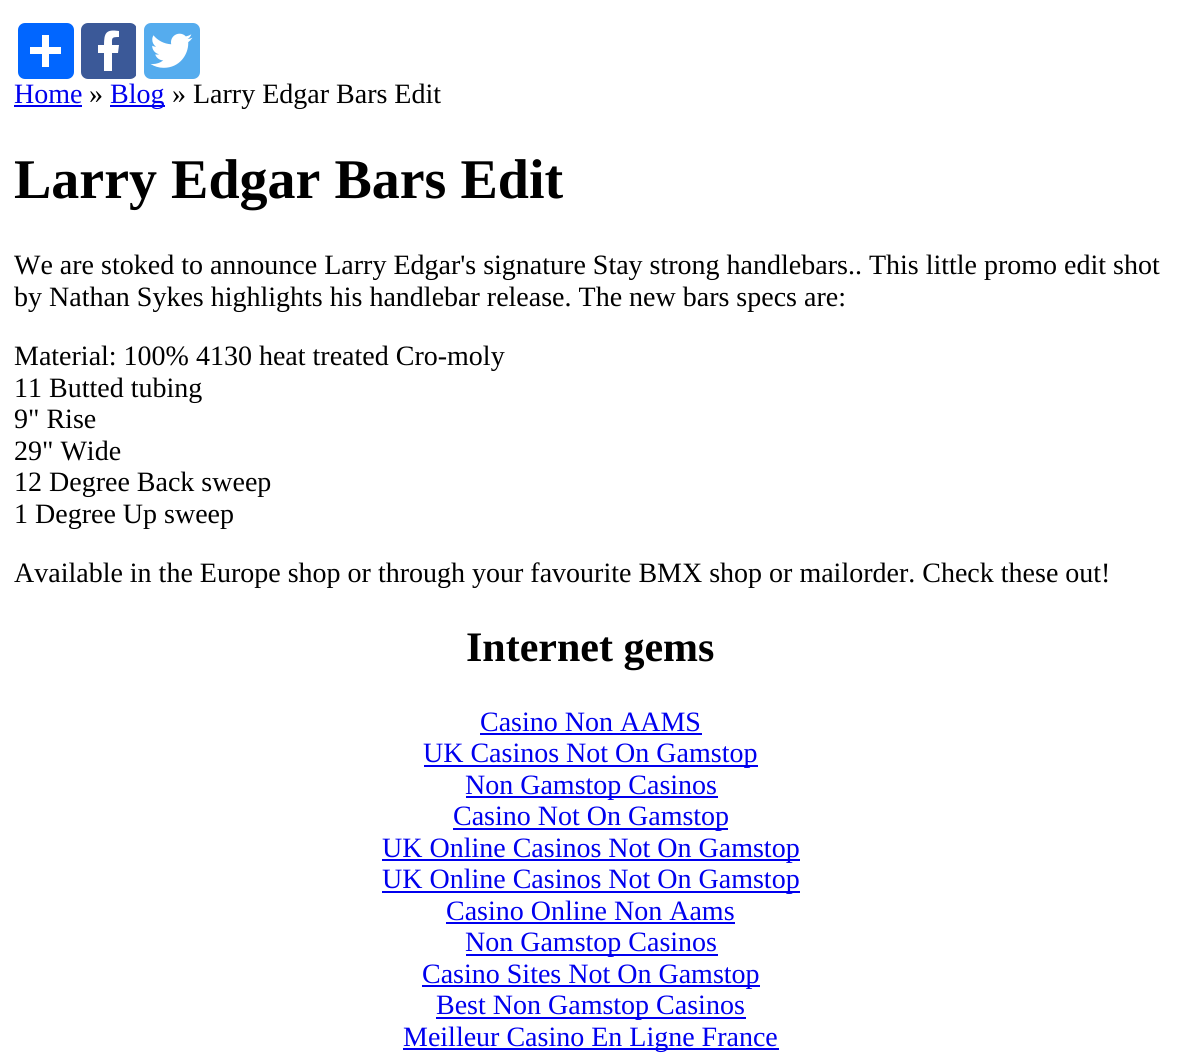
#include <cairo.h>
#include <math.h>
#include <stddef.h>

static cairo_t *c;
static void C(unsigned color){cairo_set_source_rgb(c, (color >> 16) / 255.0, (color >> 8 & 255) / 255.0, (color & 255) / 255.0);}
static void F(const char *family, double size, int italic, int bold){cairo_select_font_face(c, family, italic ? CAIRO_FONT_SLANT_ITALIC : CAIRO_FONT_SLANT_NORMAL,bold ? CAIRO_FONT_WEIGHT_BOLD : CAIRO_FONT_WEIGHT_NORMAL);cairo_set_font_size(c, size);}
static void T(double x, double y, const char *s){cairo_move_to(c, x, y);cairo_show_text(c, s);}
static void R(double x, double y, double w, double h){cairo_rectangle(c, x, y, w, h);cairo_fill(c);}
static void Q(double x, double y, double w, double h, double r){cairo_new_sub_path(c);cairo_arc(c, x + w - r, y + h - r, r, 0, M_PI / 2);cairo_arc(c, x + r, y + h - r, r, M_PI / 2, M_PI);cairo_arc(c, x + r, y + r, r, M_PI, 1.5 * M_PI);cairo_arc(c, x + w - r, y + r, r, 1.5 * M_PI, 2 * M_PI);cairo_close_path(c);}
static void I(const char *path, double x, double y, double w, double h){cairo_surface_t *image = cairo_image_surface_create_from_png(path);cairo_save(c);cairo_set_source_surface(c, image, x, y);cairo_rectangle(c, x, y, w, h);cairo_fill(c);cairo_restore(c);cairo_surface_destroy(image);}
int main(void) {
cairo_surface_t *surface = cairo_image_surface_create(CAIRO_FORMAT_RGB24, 1181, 1058);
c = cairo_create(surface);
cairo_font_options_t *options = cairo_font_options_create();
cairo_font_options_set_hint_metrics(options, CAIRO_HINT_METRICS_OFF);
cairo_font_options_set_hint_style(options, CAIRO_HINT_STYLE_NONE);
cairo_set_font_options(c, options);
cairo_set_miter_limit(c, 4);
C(0xffffff);
cairo_paint(c);
C(0x0166ff);
Q(18,23,56,56,7);
cairo_fill(c);
C(0xffffff);
R(42,35,7,32);
R(30,47,31,7);
C(0xfcfcfc);
Q(81,23,56,56,7);
cairo_fill(c);
cairo_save(c);
Q(81,23,56,56,7);
cairo_clip(c);
C(0x3b5998);
cairo_new_path(c);
cairo_move_to(c,88,23);
cairo_line_to(c,136,23);
cairo_line_to(c,136,79);
cairo_line_to(c,88,79);
cairo_curve_to(c,84,79,81,76,81,72);
cairo_line_to(c,81,30);
cairo_curve_to(c,81,26,84,23,88,23);
cairo_close_path(c);
cairo_fill(c);
cairo_restore(c);
C(0xffffff);
cairo_new_path(c);
cairo_move_to(c,112,71);
cairo_line_to(c,112,53);
cairo_line_to(c,118,53);
cairo_line_to(c,119,45);
cairo_line_to(c,112,45);
cairo_curve_to(c,112,38,111,37,119,37);
cairo_line_to(c,119,31);
cairo_curve_to(c,106,29,104,33,104,45);
cairo_line_to(c,98,45);
cairo_line_to(c,98,53);
cairo_line_to(c,104,53);
cairo_line_to(c,104,71);
cairo_close_path(c);
cairo_fill(c);
I("1.png",144,23,56,56);
F("Liberation Serif",28,0,0);
C(0x0000ee);
T(14,103,"Home");
R(14,105,68,2);
C(0x000000);
T(89,103,"»");
C(0x0000ee);
R(110,105,55,2);
T(110,103,"Blog");
C(0x000000);
T(172,103,"» Larry Edgar Bars Edit");
F("Liberation Serif",56,0,1);
T(14,198,"Larry Edgar Bars Edit");
F("Liberation Serif",28,0,0);
T(14,274,"We are stoked to announce Larry Edgar's signature Stay strong handlebars.. This little promo edit shot");
T(14,306,"by Nathan Sykes highlights his handlebar release. The new bars specs are:");
T(14,365,"Material: 100% 4130 heat treated Cro-moly");
T(14,397,"11 Butted tubing");
T(14,428,"9\" Rise");
T(14,460,"29\" Wide");
T(14,491,"12 Degree Back sweep");
T(14,523,"1 Degree Up sweep");
T(14,582,"Available in the Europe shop or through your favourite BMX shop or mailorder. Check these out!");
F("Liberation Serif",42,0,1);
T(466,661,"Internet gems");
F("Liberation Serif",28,0,0);
C(0x0000ee);
T(480,731,"Casino Non AAMS");
R(480,733,222,2);
R(424,765,334,2);
T(423,762,"UK Casinos Not On Gamstop");
R(466,796,252,2);
T(465,794,"Non Gamstop Casinos");
R(453,828,275,2);
T(453,825,"Casino Not On Gamstop");
R(382,859,418,2);
T(382,857,"UK Online Casinos Not On Gamstop");
R(382,891,418,2);
T(382,888,"UK Online Casinos Not On Gamstop");
T(446,920,"Casino Online Non Aams");
R(446,922,289,2);
R(466,954,252,2);
T(465,951,"Non Gamstop Casinos");
R(422,985,338,2);
T(422,983,"Casino Sites Not On Gamstop");
R(436,1017,310,2);
T(436,1014,"Best Non Gamstop Casinos");
R(403,1048,376,2);
T(403,1046,"Meilleur Casino En Ligne France");
cairo_surface_write_to_png(surface, "o.png");
cairo_font_options_destroy(options);
cairo_destroy(c);
cairo_surface_destroy(surface);
return 0;
}
